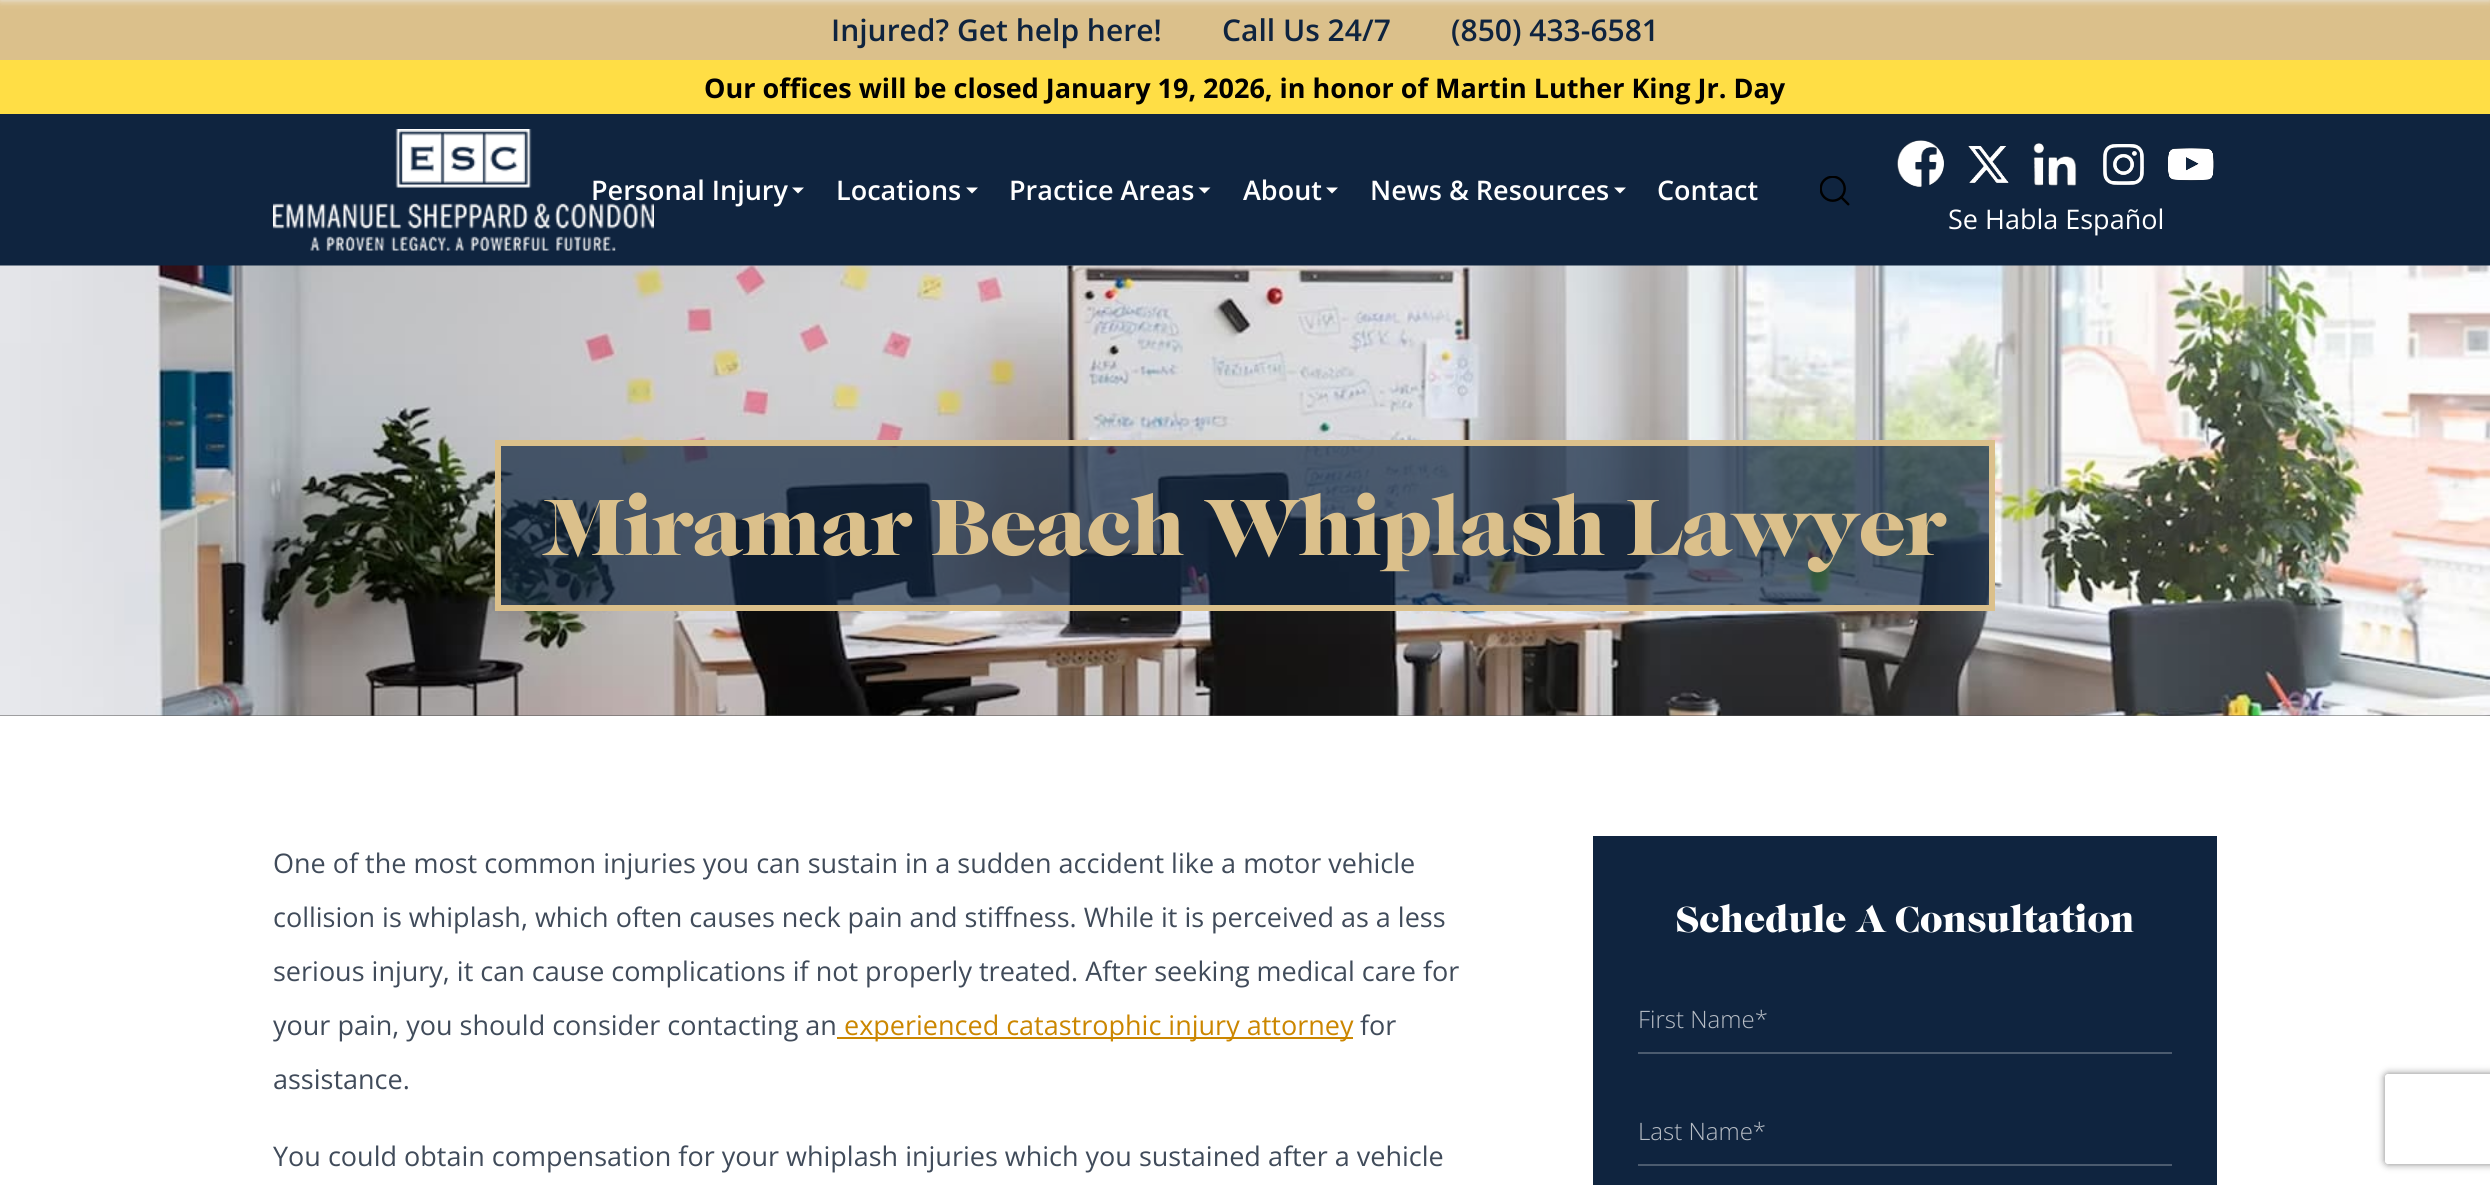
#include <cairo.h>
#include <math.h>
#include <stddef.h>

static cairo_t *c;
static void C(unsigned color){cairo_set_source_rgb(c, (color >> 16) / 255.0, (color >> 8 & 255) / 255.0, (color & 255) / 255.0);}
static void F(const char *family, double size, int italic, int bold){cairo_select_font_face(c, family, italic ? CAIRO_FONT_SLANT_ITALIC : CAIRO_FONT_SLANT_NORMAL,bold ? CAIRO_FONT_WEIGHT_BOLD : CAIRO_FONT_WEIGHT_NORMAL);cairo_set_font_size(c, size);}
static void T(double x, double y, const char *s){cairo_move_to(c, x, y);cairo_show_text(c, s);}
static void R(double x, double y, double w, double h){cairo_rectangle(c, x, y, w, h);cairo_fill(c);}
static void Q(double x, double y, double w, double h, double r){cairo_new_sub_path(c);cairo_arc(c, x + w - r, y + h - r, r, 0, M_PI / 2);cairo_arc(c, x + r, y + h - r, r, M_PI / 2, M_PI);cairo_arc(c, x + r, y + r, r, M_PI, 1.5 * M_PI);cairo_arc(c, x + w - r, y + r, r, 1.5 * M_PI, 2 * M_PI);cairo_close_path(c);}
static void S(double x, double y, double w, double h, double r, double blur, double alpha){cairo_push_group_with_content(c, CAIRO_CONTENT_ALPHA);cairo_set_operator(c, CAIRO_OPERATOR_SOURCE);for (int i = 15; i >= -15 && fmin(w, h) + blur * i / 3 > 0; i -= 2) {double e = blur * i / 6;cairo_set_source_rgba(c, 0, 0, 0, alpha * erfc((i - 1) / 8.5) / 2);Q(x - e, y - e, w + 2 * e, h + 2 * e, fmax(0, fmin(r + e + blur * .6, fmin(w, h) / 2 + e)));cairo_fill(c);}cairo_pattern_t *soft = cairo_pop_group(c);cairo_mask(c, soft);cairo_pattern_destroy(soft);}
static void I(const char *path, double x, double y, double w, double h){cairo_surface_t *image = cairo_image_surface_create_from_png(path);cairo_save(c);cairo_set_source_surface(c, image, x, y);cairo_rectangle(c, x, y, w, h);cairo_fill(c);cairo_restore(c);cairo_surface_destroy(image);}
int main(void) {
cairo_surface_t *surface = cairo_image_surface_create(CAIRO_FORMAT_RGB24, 2490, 1185);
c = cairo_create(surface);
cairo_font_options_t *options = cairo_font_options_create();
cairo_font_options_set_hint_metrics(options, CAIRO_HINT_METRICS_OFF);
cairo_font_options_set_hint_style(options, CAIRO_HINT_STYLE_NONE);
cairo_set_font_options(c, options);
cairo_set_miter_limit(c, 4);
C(0xffffff);
cairo_paint(c);
C(0xdbc08b);
R(0,0,2490,60);
F("Open Sans SemiBold",30,0,0);
C(0x0f243f);
T(831,41,"Injured? Get help here!");
T(1222,41,"Call Us 24/7");
T(1451,41,"(850) 433-6581");
C(0xffde45);
R(0,60,2490,54);
F("Open Sans",27,0,1);
C(0x000000);
T(704,98,"Our offices will be closed January 19, 2026, in honor of Martin Luther King Jr. Day");
C(0x0f243f);
R(0,114,2490,152);
I("1.png",273,129,381,122);
C(0xeeeeee);
S(0,-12,2490,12,0,4,1);
I("2.png",1820,176,30,30);
F("Open Sans SemiBold",27,0,0);
C(0xffffff);
T(591,200,"Personal Injury");
cairo_new_path(c);
cairo_move_to(c,792,187.5);
cairo_line_to(c,804,187.5);
cairo_line_to(c,798,193.5);
cairo_close_path(c);
cairo_fill(c);
T(836,200,"Locations");
cairo_new_path(c);
cairo_move_to(c,966,187.5);
cairo_line_to(c,978,187.5);
cairo_line_to(c,972,193.5);
cairo_close_path(c);
cairo_fill(c);
T(1009,200,"Practice Areas");
cairo_new_path(c);
cairo_move_to(c,1198.5,187.5);
cairo_line_to(c,1210.5,187.5);
cairo_line_to(c,1204.5,193.5);
cairo_close_path(c);
cairo_fill(c);
T(1243,200,"About");
cairo_new_path(c);
cairo_move_to(c,1326,187.5);
cairo_line_to(c,1338,187.5);
cairo_line_to(c,1332,193.5);
cairo_close_path(c);
cairo_fill(c);
T(1370,200,"News & Resources");
cairo_new_path(c);
cairo_move_to(c,1614,187.5);
cairo_line_to(c,1626,187.5);
cairo_line_to(c,1620,193.5);
cairo_close_path(c);
cairo_fill(c);
T(1657,200,"Contact");
I("3.png",1897,140,47,47);
I("4.png",1968,145,41,38);
I("5.png",2033,143,44,43);
I("6.png",2103,144,41,41);
I("7.png",2168,148,46,33);
F("Open Sans",27,0,0);
T(1948,229,"Se Habla Español");
C(0x555555);
R(0,715,2490,1);
I("8.png",0,265,2490,451);
cairo_set_source_rgba(c,0.059,0.141,0.247,0.7);
cairo_rectangle(c,498,443,1494,165);
cairo_fill_preserve(c);
C(0xdbc08b);
cairo_set_line_width(c,6);
cairo_stroke(c);
F("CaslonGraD",82.5,0,0);
T(544,555,"Miramar Beach Whiplash Lawyer");
F("Open Sans",27,0,0);
C(0x404b5a);
T(273,873,"One of the most common injuries you can sustain in a sudden accident like a motor vehicle");
T(273,927,"collision is whiplash, which often causes neck pain and stiffness. While it is perceived as a less");
T(273,981,"serious injury, it can cause complications if not properly treated. After seeking medical care for");
T(273,1035,"your pain, you should consider contacting an");
C(0xcb8600);
R(837,1037,516,2);
T(844,1035,"experienced catastrophic injury attorney");
C(0x404b5a);
T(1360,1035,"for");
T(273,1089,"assistance.");
T(273,1166,"You could obtain compensation for your whiplash injuries which you sustained after a vehicle");
C(0x0f243f);
R(1593,836,624,349);
F("CaslonGraD",37.5,0,0);
C(0xffffff);
T(1676,932,"Schedule A Consultation");
C(0x4b5b6f);
R(1638,1052,534,2);
F("Open Sans Light",24,0,0);
C(0xb7bdc5);
T(1638,1028,"First Name*");
C(0x4b5b6f);
R(1638,1164,534,2);
C(0xb7bdc5);
T(1638,1140,"Last Name*");
cairo_save(c);
cairo_set_fill_rule(c,CAIRO_FILL_RULE_EVEN_ODD);
cairo_new_path(c);
cairo_move_to(c,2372,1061);
cairo_line_to(c,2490,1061);
cairo_line_to(c,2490,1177);
cairo_line_to(c,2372,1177);
cairo_close_path(c);
cairo_move_to(c,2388,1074);
cairo_line_to(c,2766,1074);
cairo_curve_to(c,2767.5,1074,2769,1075.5,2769,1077);
cairo_line_to(c,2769,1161);
cairo_curve_to(c,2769,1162.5,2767.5,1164,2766,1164);
cairo_line_to(c,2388,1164);
cairo_curve_to(c,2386.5,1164,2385,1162.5,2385,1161);
cairo_line_to(c,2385,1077);
cairo_curve_to(c,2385,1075.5,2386.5,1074,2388,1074);
cairo_close_path(c);
cairo_clip(c);
C(0x808080);
S(2385,1074,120,90,3,4,1);
cairo_restore(c);
cairo_surface_write_to_png(surface, "o.png");
cairo_font_options_destroy(options);
cairo_destroy(c);
cairo_surface_destroy(surface);
return 0;
}
